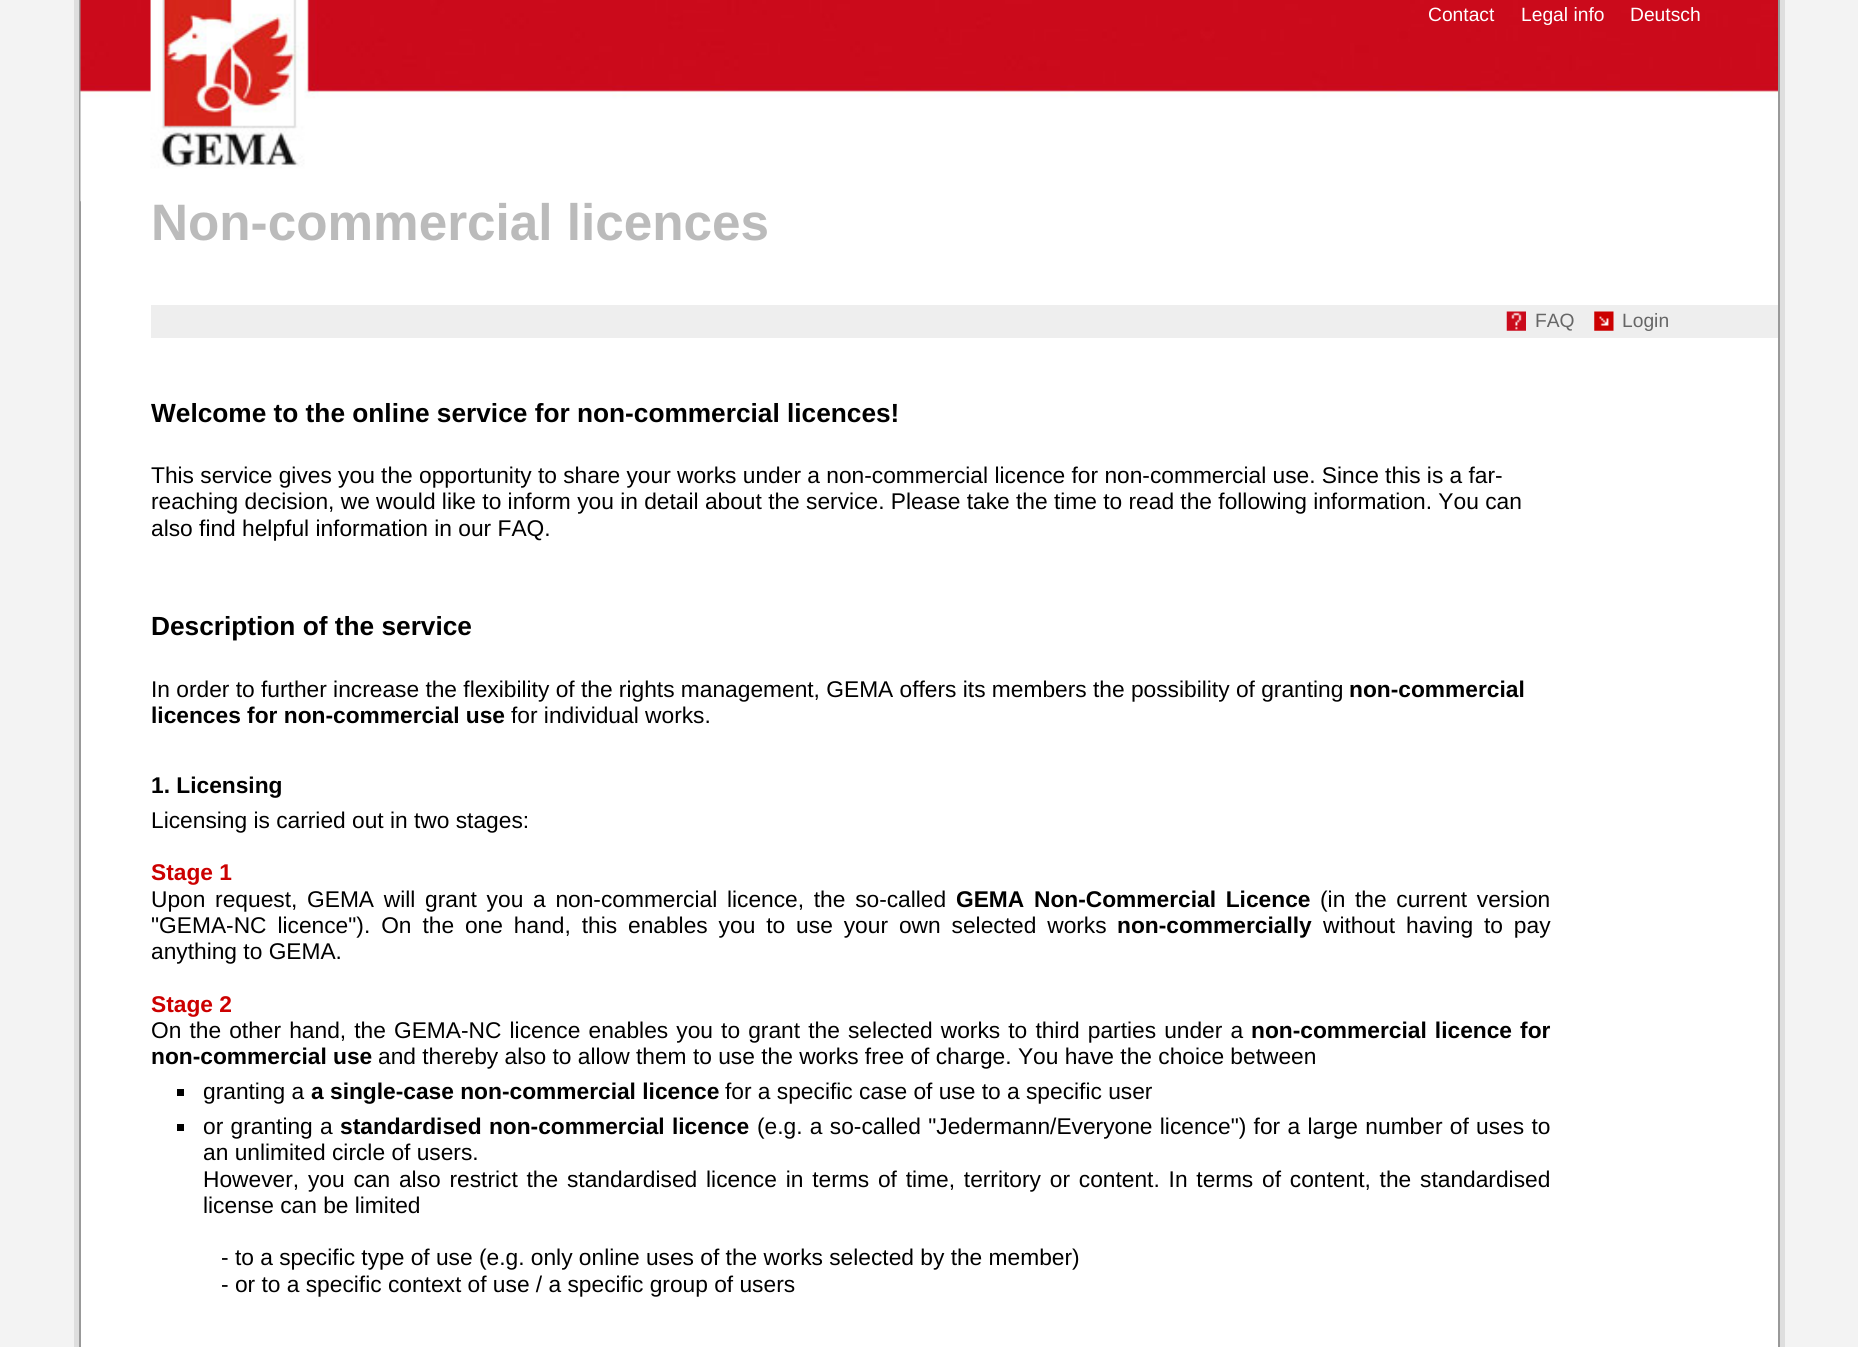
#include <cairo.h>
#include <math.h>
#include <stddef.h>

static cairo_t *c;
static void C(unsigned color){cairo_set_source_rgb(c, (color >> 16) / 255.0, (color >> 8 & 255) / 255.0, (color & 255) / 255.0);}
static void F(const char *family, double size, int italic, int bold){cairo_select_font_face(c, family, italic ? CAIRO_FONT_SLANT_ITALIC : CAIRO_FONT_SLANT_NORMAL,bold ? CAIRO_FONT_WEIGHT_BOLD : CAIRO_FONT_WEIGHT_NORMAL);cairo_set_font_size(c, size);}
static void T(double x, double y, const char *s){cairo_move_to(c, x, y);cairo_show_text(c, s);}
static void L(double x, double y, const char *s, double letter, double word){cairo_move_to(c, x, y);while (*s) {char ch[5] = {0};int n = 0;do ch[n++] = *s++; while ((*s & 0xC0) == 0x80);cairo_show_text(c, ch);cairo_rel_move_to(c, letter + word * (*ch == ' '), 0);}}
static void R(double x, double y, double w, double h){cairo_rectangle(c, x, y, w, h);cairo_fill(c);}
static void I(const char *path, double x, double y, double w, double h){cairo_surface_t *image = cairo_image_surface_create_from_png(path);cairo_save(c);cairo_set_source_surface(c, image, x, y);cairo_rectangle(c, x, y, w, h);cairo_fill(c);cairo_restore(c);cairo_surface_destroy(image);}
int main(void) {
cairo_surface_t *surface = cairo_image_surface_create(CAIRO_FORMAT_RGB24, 1858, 1347);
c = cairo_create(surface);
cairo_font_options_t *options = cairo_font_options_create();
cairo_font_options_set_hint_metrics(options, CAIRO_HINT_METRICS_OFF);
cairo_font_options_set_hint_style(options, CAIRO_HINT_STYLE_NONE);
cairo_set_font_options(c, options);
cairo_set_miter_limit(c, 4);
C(0xf3f3f3);
cairo_paint(c);
C(0xdedede);
R(74,0,1711,1347);
C(0xffffff);
R(81,201,1697,1146);
C(0x999999);
R(1778,0,2,1347);
R(79,0,2,1347);
I("1.png",80,0,1698,202);
F("Liberation Sans",19.25,0,0);
C(0xffffff);
T(1428,21,"Contact");
T(1521,21,"Legal info");
T(1630,21,"Deutsch");
F("Liberation Sans",51.25,0,1);
C(0xbbbbbb);
T(151,240,"Non-commercial licences");
C(0xeeeeee);
R(151,305,1627,33);
I("2.png",1506,311,20,20);
F("Liberation Sans",19.25,0,0);
C(0x666666);
T(1535,327,"FAQ");
I("3.png",1594,311,20,20);
T(1622,327,"Login");
F("Liberation Sans",26.25,0,1);
C(0x000000);
T(151,422,"Welcome to the online service for non-commercial licences!");
F("Liberation Sans",22.75,0,0);
T(151,483,"This service gives you the opportunity to share your works under a non-commercial licence for non-commercial use. Since this is a far-");
T(151,509,"reaching decision, we would like to inform you in detail about the service. Please take the time to read the following information. You can");
T(151,536,"also find helpful information in our FAQ.");
F("Liberation Sans",26.25,0,1);
T(151,635,"Description of the service");
F("Liberation Sans",22.75,0,0);
T(151,697,"In order to further increase the flexibility of the rights management, GEMA offers its members the possibility of granting");
F("Liberation Sans",22.75,0,1);
T(1349,697,"non-commercial");
T(151,723,"licences for non-commercial use");
F("Liberation Sans",22.75,0,0);
T(511,723,"for individual works.");
F("Liberation Sans",22.75,0,1);
T(151,793,"1. Licensing");
F("Liberation Sans",22.75,0,0);
T(151,828,"Licensing is carried out in two stages:");
F("Liberation Sans",22.75,0,1);
C(0xcc0000);
T(151,880,"Stage 1");
F("Liberation Sans",22.75,0,0);
C(0x000000);
L(151,907,"Upon request, GEMA will grant you a non-commercial licence, the so-called",0,3.4);
F("Liberation Sans",22.75,0,1);
L(956,907,"GEMA Non-Commercial Licence",0,3.4);
F("Liberation Sans",22.75,0,0);
L(1320,907,"(in the current version",0,3.4);
L(151,933,"\"GEMA-NC licence\"). On the one hand, this enables you to use your own selected works",0,4.6);
F("Liberation Sans",22.75,0,1);
T(1117,933,"non-commercially");
F("Liberation Sans",22.75,0,0);
L(1323,933,"without having to pay",0,4.6);
T(151,959,"anything to GEMA.");
F("Liberation Sans",22.75,0,1);
C(0xcc0000);
T(151,1012,"Stage 2");
F("Liberation Sans",22.75,0,0);
C(0x000000);
L(151,1038,"On the other hand, the GEMA-NC licence enables you to grant the selected works to third parties under a",0,1.8);
F("Liberation Sans",22.75,0,1);
L(1251,1038,"non-commercial licence for",0,1.8);
T(151,1064,"non-commercial use");
F("Liberation Sans",22.75,0,0);
T(378,1064,"and thereby also to allow them to use the works free of charge. You have the choice between");
R(177,1089,7,7);
T(203,1099,"granting a");
F("Liberation Sans",22.75,0,1);
T(311,1099,"a single-case non-commercial licence");
F("Liberation Sans",22.75,0,0);
T(725,1099,"for a specific case of use to a specific user");
R(177,1124,7,7);
L(203,1134,"or granting a",0,1);
F("Liberation Sans",22.75,0,1);
L(340,1134,"standardised non-commercial licence",0,1);
F("Liberation Sans",22.75,0,0);
L(757,1134,"(e.g. a so-called \"Jedermann/Everyone licence\") for a large number of uses to",0,1);
T(203,1160,"an unlimited circle of users.");
L(203,1187,"However, you can also restrict the standardised licence in terms of time, territory or content. In terms of content, the standardised",0,2.5);
T(203,1213,"license can be limited");
T(221,1265,"- to a specific type of use (e.g. only online uses of the works selected by the member)");
T(221,1292,"- or to a specific context of use / a specific group of users");
cairo_surface_write_to_png(surface, "o.png");
cairo_font_options_destroy(options);
cairo_destroy(c);
cairo_surface_destroy(surface);
return 0;
}
